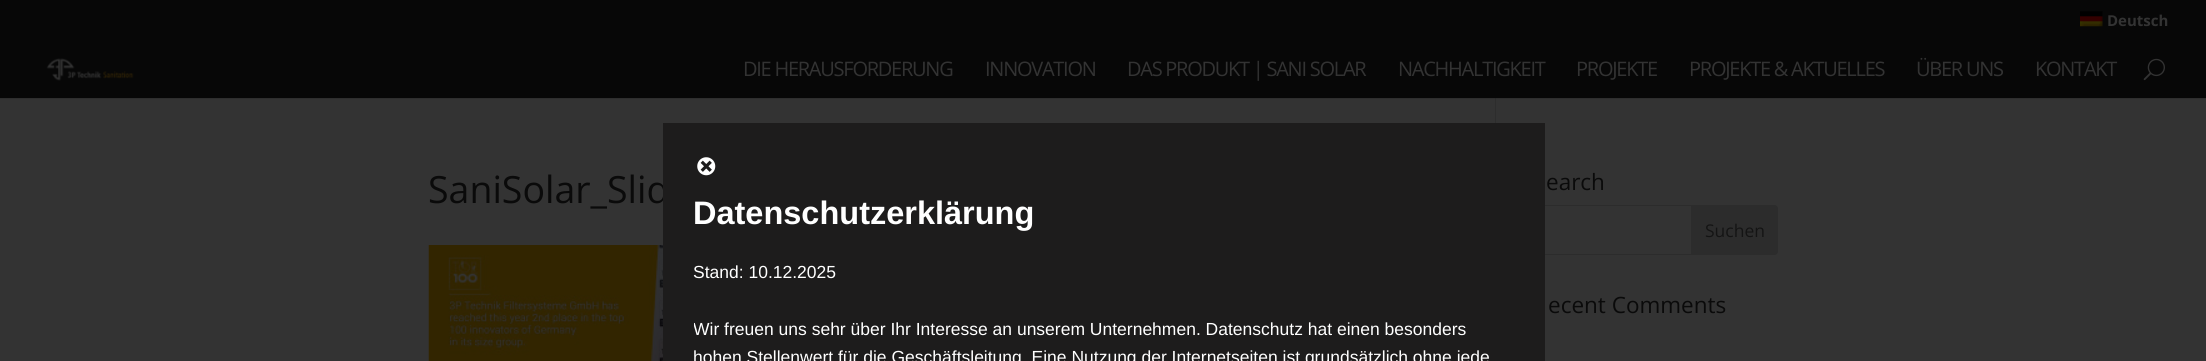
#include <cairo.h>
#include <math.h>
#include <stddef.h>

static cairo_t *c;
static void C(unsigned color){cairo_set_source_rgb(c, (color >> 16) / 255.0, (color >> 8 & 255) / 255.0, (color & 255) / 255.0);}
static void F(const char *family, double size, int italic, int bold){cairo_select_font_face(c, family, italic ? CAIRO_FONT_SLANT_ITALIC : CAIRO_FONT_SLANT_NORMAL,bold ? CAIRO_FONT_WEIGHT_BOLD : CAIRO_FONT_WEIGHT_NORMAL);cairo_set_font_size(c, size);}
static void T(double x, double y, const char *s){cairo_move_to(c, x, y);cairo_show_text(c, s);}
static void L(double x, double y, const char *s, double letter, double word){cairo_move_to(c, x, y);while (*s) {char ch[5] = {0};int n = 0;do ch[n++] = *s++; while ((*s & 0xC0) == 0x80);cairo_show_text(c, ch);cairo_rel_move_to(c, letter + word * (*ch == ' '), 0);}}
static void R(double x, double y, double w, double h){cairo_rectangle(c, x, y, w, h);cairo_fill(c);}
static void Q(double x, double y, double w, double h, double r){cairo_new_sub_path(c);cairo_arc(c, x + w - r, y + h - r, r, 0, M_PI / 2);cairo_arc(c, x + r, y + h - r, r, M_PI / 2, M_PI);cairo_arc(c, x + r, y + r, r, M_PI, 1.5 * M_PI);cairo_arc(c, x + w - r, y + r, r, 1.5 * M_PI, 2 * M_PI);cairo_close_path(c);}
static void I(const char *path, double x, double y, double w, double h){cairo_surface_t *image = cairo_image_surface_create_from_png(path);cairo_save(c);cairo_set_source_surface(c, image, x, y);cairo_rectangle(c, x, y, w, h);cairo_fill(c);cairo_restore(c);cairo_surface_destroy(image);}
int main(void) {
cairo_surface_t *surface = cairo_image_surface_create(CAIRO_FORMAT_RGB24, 2206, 361);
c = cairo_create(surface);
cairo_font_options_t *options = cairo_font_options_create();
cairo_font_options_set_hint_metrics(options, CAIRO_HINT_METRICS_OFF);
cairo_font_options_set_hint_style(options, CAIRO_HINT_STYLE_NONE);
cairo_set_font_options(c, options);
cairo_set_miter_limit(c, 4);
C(0x333333);
cairo_paint(c);
C(0x2e2e2e);
R(0,98,2206,1);
C(0x070707);
R(0,0,2206,98);
I("1.png",2080,11,23,16);
F("Open Sans",15,0,1);
C(0x333333);
T(2107,26,"Deutsch");
I("2.png",46,58,88,23);
F("Open Sans",20,0,0);
L(743,76,"DIE HERAUSFORDERUNG",-1.25,0);
L(985,76,"INNOVATION",-1.25,0);
L(1127,76,"DAS PRODUKT | SANI SOLAR",-1.25,0);
L(1398,76,"NACHHALTIGKEIT",-1.25,0);
L(1576,76,"PROJEKTE",-1.25,0);
L(1689,76,"PROJEKTE & AKTUELLES",-1.25,0);
L(1916,76,"ÜBER UNS",-1.25,0);
L(2035,76,"KONTAKT",-1.25,0);
I("3.png",2143,58,22,23);
C(0x2d2d2d);
R(1495,98,1,25);
C(0x292929);
R(1495,98,1,1);
F("Open Sans",37.5,0,0);
C(0x0a0a0a);
T(428,203,"SaniSolar_Slid");
I("4.png",428,245,235,116);
F("Open Sans",22.5,0,0);
T(1546,190,"earch");
Q(1534.5,205.5,243,49,3.5);
C(0x2c2c2c);
cairo_set_line_width(c,1);
cairo_stroke(c);
cairo_new_path(c);
cairo_move_to(c,1691,205);
cairo_line_to(c,1774,205);
cairo_curve_to(c,1776,205,1778,207,1778,209);
cairo_line_to(c,1778,251);
cairo_curve_to(c,1778,253,1776,255,1774,255);
cairo_line_to(c,1691,255);
cairo_close_path(c);
cairo_fill(c);
F("Open Sans",17.5,0,0);
C(0x141414);
T(1705,237,"Suchen");
F("Open Sans",22.5,0,0);
C(0x0a0a0a);
T(1548,313,"ecent Comments");
C(0x1d1c1c);
R(663,123,882,238);
I("5.png",697,157,19,19);
F("Liberation Sans",32.5,0,1);
C(0xffffff);
T(693,224,"Datenschutzerklärung");
F("Liberation Sans",17.5,0,0);
T(693,278,"Stand: 10.12.2025");
cairo_save(c);
cairo_rectangle(c,694,181,851,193);
cairo_clip(c);
T(693,335,"Wir freuen uns sehr über Ihr Interesse an unserem Unternehmen. Datenschutz hat einen besonders");
cairo_restore(c);
T(693,363,"hohen Stellenwert für die Geschäftsleitung. Eine Nutzung der Internetseiten ist grundsätzlich ohne jede");
cairo_surface_write_to_png(surface, "o.png");
cairo_font_options_destroy(options);
cairo_destroy(c);
cairo_surface_destroy(surface);
return 0;
}
